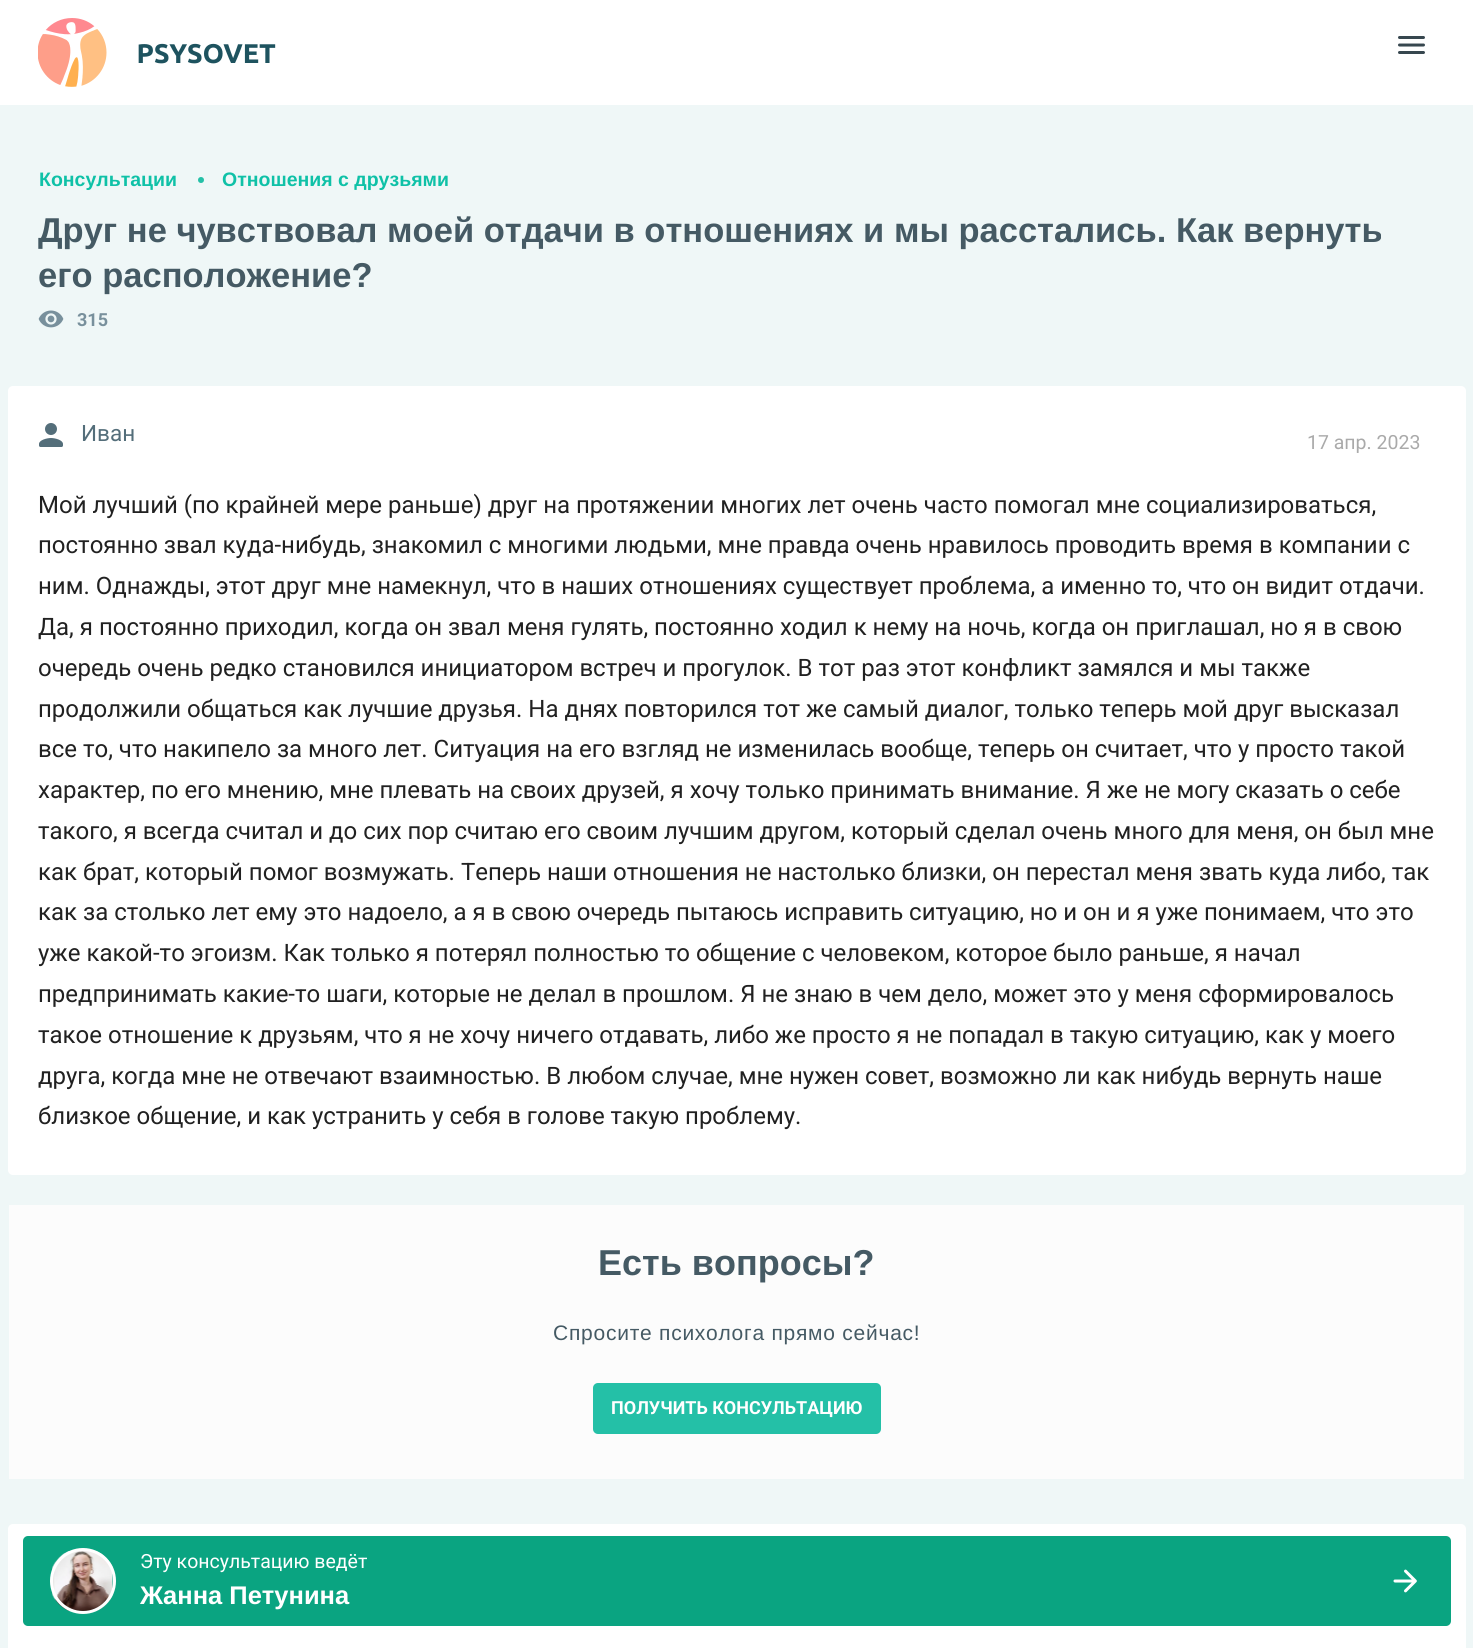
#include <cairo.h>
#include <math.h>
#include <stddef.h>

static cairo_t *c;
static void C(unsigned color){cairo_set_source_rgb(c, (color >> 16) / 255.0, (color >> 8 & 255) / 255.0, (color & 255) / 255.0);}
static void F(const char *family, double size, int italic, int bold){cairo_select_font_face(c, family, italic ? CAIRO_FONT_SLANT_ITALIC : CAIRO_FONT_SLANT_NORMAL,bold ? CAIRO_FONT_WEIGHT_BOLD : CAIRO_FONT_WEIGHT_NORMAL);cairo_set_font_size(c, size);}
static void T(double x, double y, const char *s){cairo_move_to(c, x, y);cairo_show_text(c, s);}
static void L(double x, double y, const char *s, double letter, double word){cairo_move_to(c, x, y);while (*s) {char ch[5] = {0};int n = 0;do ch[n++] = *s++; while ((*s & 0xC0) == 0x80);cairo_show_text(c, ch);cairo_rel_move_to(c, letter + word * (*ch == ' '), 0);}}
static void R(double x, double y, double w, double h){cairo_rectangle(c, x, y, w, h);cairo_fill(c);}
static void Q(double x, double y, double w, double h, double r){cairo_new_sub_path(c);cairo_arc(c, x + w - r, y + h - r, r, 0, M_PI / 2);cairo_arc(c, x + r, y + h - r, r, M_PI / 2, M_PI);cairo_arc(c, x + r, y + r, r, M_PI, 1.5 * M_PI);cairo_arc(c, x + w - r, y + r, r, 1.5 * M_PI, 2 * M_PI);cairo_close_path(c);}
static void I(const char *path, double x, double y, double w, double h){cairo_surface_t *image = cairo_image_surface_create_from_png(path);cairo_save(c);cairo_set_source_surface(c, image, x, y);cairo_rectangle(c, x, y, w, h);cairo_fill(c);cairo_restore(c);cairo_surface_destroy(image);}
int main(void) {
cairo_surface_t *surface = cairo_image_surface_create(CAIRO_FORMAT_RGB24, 1473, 1648);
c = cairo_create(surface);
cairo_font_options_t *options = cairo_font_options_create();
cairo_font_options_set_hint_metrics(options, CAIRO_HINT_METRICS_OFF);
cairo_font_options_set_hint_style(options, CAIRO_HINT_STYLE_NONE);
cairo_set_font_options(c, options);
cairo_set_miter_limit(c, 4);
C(0xeff7f7);
cairo_paint(c);
C(0xffffff);
R(0,0,1473,105);
I("1.png",38,18,238,69);
I("2.png",1398,36,27,18);
F("Liberation Sans",19.5,0,1);
C(0x0fc1a7);
T(39,186,"Консультации");
C(0x24c0a7);
cairo_new_path(c);
cairo_arc(c,201,180,3,0,2 * M_PI);
cairo_fill(c);
C(0x0fc1a7);
T(222,186,"Отношения с друзьями");
F("Liberation Sans",34.5,0,1);
C(0x455a64);
T(38,242,"Друг не чувствовал моей отдачи в отношениях и мы расстались. Как вернуть");
T(38,287,"его расположение?");
I("3.png",38,310,26,18);
F("Roboto",18,0,1);
C(0x78909c);
T(77,326,"315");
C(0xffffff);
Q(8,386,1458,789,5);
cairo_fill(c);
I("4.png",39,423,24,24);
F("Roboto",22.5,0,0);
C(0x546e7a);
T(81,441,"Иван");
F("Roboto",19.5,0,0);
C(0xaaaaaa);
T(1307,449,"17 апр. 2023");
F("Roboto",24,0,0);
C(0x212121);
T(38,513,"Мой лучший (по крайней мере раньше) друг на протяжении многих лет очень часто помогал мне социализироваться,");
T(38,553,"постоянно звал куда-нибудь, знакомил с многими людьми, мне правда очень нравилось проводить время в компании с");
T(38,594,"ним. Однажды, этот друг мне намекнул, что в наших отношениях существует проблема, а именно то, что он видит отдачи.");
T(38,635,"Да, я постоянно приходил, когда он звал меня гулять, постоянно ходил к нему на ночь, когда он приглашал, но я в свою");
T(38,676,"очередь очень редко становился инициатором встреч и прогулок. В тот раз этот конфликт замялся и мы также");
T(38,717,"продолжили общаться как лучшие друзья. На днях повторился тот же самый диалог, только теперь мой друг высказал");
T(38,757,"все то, что накипело за много лет. Ситуация на его взгляд не изменилась вообще, теперь он считает, что у просто такой");
T(38,798,"характер, по его мнению, мне плевать на своих друзей, я хочу только принимать внимание. Я же не могу сказать о себе");
T(38,839,"такого, я всегда считал и до сих пор считаю его своим лучшим другом, который сделал очень много для меня, он был мне");
T(38,880,"как брат, который помог возмужать. Теперь наши отношения не настолько близки, он перестал меня звать куда либо, так");
T(38,920,"как за столько лет ему это надоело, а я в свою очередь пытаюсь исправить ситуацию, но и он и я уже понимаем, что это");
T(38,961,"уже какой-то эгоизм. Как только я потерял полностью то общение с человеком, которое было раньше, я начал");
T(38,1002,"предпринимать какие-то шаги, которые не делал в прошлом. Я не знаю в чем дело, может это у меня сформировалось");
T(38,1043,"такое отношение к друзьям, что я не хочу ничего отдавать, либо же просто я не попадал в такую ситуацию, как у моего");
T(38,1084,"друга, когда мне не отвечают взаимностью. В любом случае, мне нужен совет, возможно ли как нибудь вернуть наше");
T(38,1124,"близкое общение, и как устранить у себя в голове такую проблему.");
C(0xfcfcfc);
R(9,1205,1455,274);
F("Liberation Sans",36,0,1);
C(0x455a64);
T(598,1275,"Есть вопросы?");
F("Liberation Sans",21,0,0);
L(553,1340,"Спросите психолога прямо сейчас!",.75,0);
C(0x24c0a7);
Q(593,1383,288,51,5);
cairo_fill(c);
F("Roboto",18,0,1);
C(0xffffff);
T(611,1414,"ПОЛУЧИТЬ КОНСУЛЬТАЦИЮ");
Q(8,1524,1458,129,5);
cairo_fill(c);
C(0x0aa481);
Q(23,1536,1428,90,5);
cairo_fill(c);
I("5.png",52,1551,61,60);
cairo_arc(c,83,1581,31.5,0,2 * M_PI);
C(0xffffff);
cairo_set_line_width(c,3);
cairo_stroke(c);
F("Roboto",19.5,0,0);
T(140,1568,"Эту консультацию ведёт");
F("Liberation Sans",25.5,0,1);
T(140,1604,"Жанна Петунина");
I("6.png",1393,1569,24,24);
cairo_surface_write_to_png(surface, "o.png");
cairo_font_options_destroy(options);
cairo_destroy(c);
cairo_surface_destroy(surface);
return 0;
}
